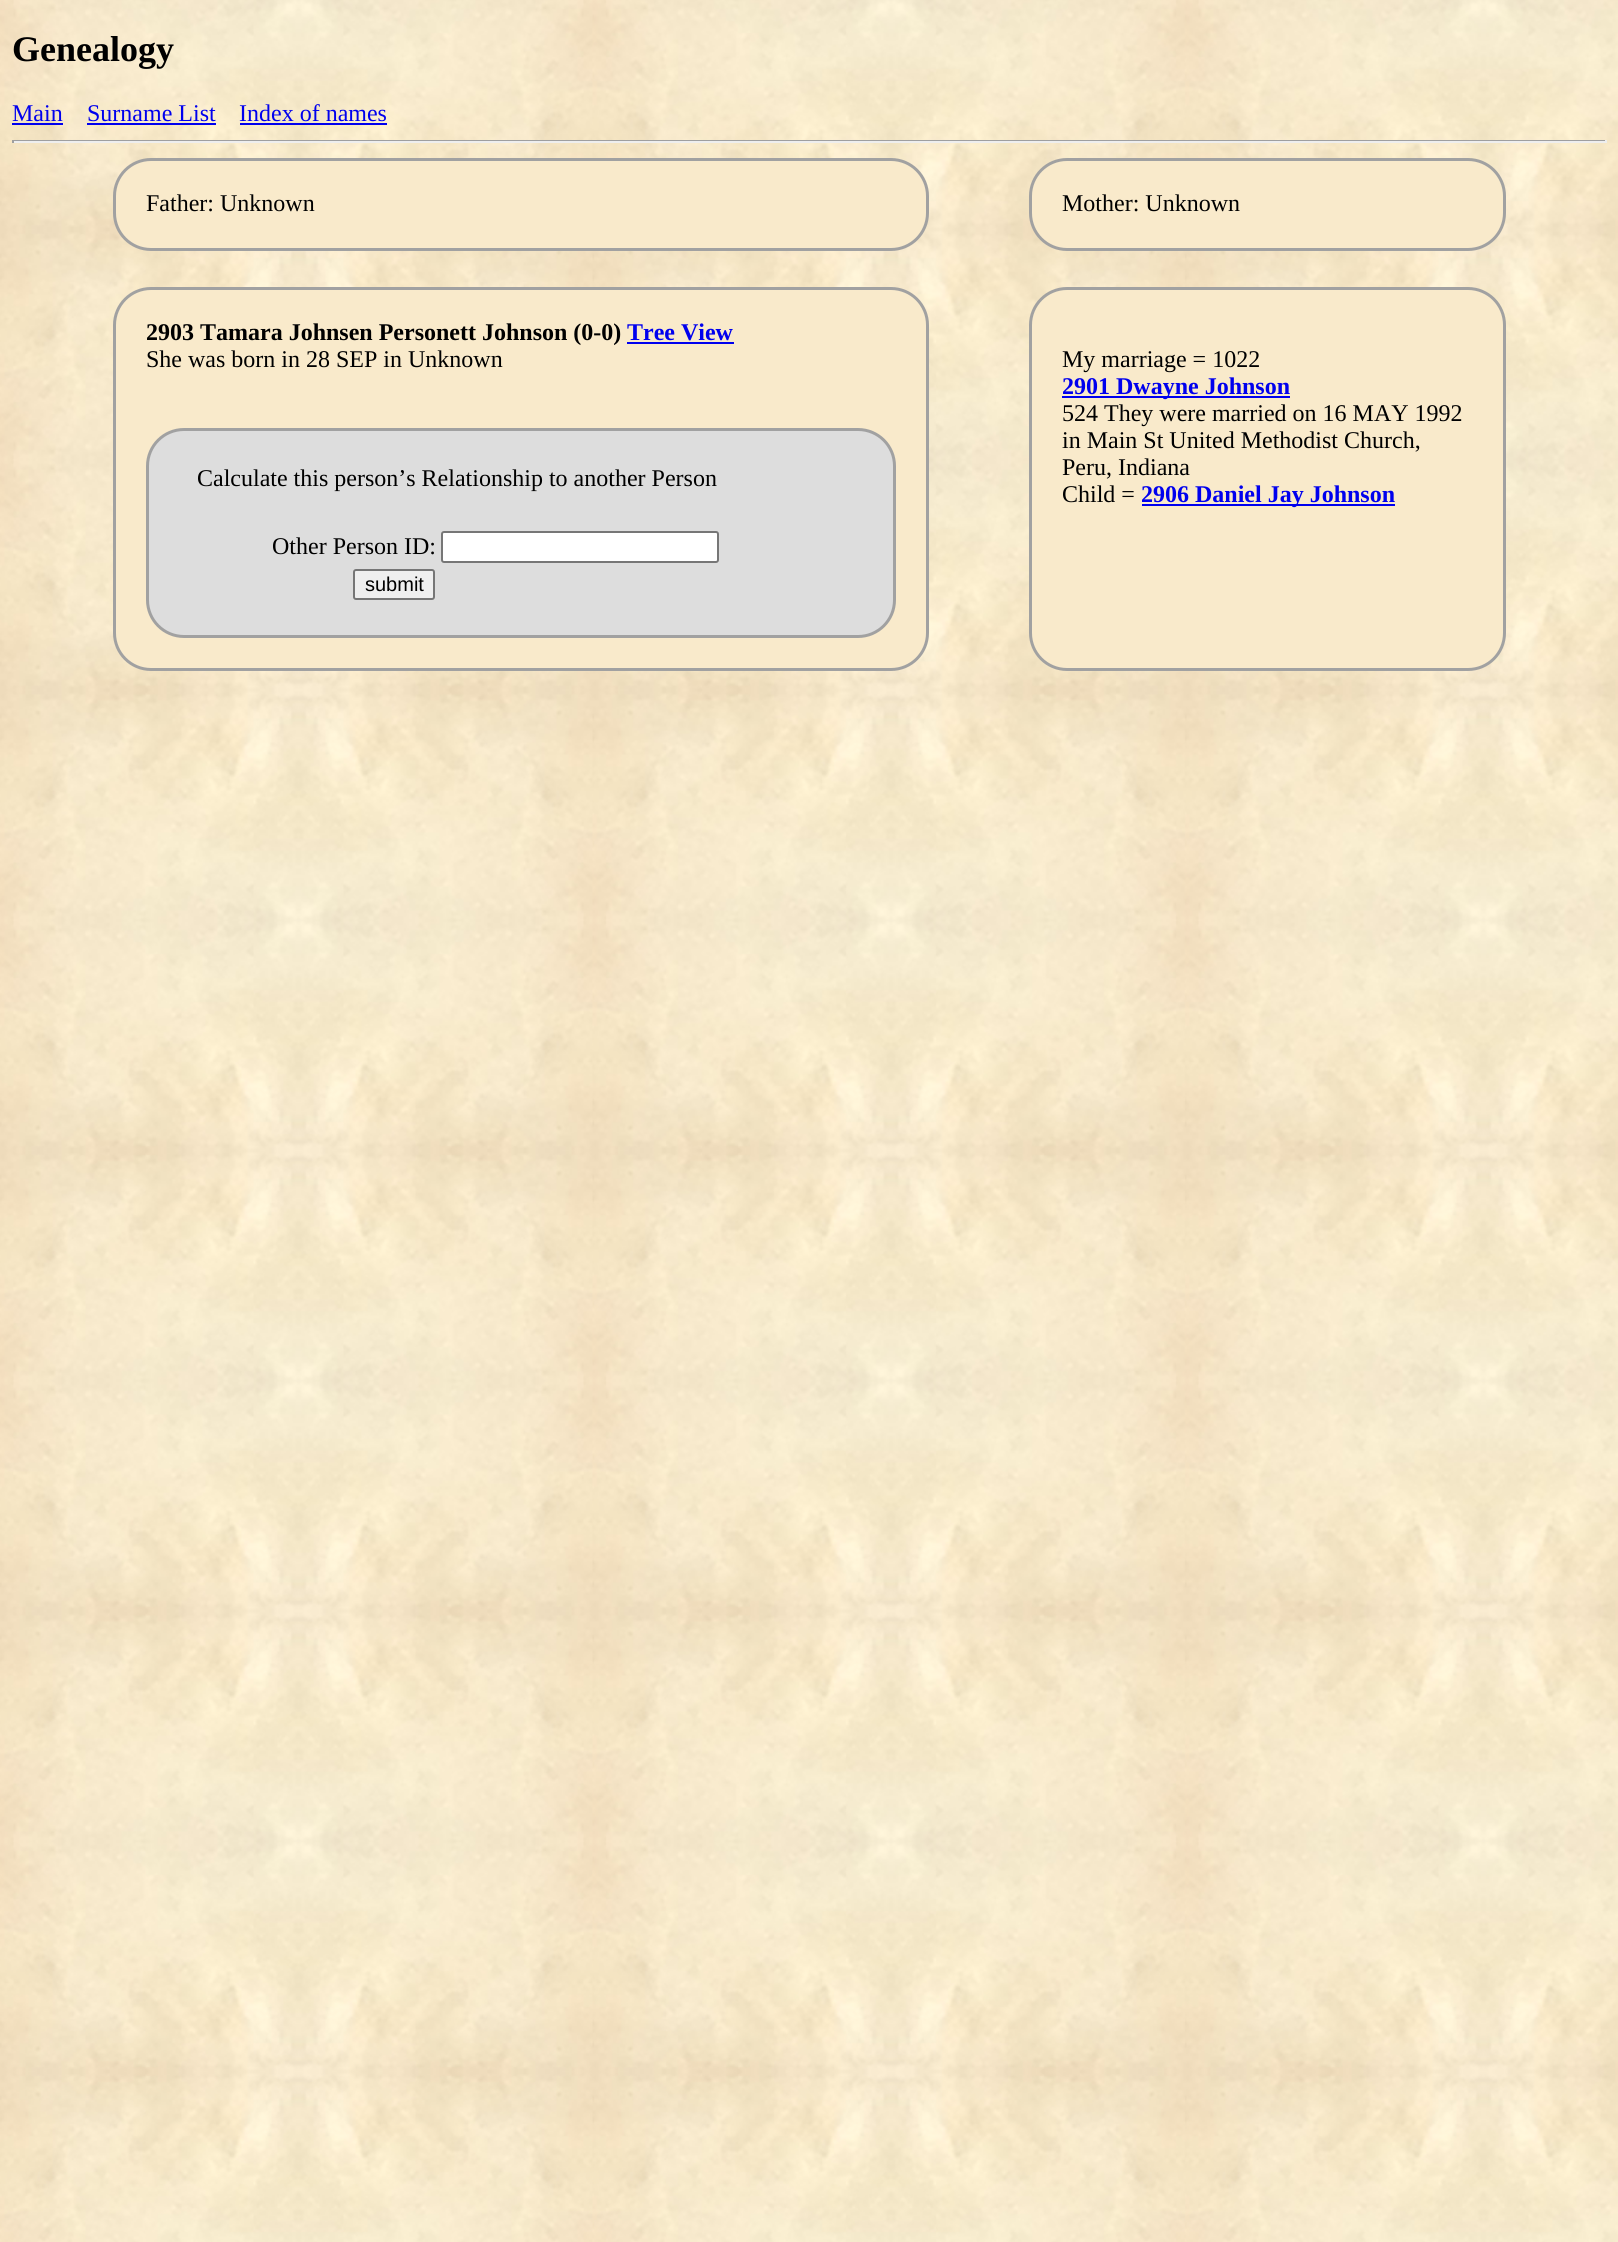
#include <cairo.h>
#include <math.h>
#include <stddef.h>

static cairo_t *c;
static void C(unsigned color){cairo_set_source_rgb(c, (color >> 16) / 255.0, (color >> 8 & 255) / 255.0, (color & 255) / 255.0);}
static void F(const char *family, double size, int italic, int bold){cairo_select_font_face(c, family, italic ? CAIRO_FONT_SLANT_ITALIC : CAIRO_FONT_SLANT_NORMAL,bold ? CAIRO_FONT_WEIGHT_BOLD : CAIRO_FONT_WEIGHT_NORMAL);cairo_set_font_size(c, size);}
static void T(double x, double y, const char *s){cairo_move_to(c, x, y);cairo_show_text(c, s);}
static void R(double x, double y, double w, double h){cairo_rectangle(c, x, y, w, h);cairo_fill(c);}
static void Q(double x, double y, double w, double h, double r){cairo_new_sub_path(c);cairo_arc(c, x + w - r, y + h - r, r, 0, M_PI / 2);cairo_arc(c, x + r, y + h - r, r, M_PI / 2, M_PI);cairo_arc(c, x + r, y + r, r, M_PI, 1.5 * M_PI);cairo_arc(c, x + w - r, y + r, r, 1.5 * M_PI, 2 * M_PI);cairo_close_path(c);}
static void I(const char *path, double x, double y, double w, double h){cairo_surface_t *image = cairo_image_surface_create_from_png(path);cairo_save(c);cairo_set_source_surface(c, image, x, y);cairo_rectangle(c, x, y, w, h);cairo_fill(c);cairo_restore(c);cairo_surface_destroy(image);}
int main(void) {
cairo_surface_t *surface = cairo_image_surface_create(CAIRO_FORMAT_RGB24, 1618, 2242);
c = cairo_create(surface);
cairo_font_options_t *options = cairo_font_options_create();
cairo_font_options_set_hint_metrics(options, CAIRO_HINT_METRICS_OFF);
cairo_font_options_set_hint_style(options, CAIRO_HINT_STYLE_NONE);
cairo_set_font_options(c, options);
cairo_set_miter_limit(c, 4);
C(0xffffff);
cairo_paint(c);
I("1.png",0,0,1618,2242);
F("Liberation Serif",36,0,1);
C(0x000000);
T(12,61,"Genealogy");
F("Liberation Serif",24,0,0);
C(0x0000ee);
T(12,121,"Main");
R(12,123,51,2);
T(87,121,"Surname List");
R(87,123,129,2);
T(239,121,"Index of names");
R(240,123,147,2);
C(0x9f9f9f);
R(12,140,1595,1);
C(0xeeeeee);
R(1605,140,2,3);
R(12,141,1595,2);
C(0x9f9f9f);
R(12,140,2,3);
C(0xf9eacb);
Q(114.5,159.5,813,90,36.5);
cairo_fill_preserve(c);
C(0xa1a1a1);
cairo_set_line_width(c,3);
cairo_stroke(c);
C(0x000000);
T(146,211,"Father: Unknown");
C(0xf9eacb);
Q(1030.5,159.5,474,90,36.5);
cairo_fill_preserve(c);
C(0xa1a1a1);
cairo_stroke(c);
C(0x000000);
T(1062,211,"Mother: Unknown");
C(0xf9eacb);
Q(114.5,288.5,813,381,36.5);
cairo_fill_preserve(c);
C(0xa1a1a1);
cairo_stroke(c);
F("Liberation Serif",24,0,1);
C(0x000000);
T(146,340,"2903 Tamara Johnsen Personett Johnson (0-0)");
C(0x0000ee);
T(627,340,"Tree View");
R(627,342,107,2);
F("Liberation Serif",24,0,0);
C(0x000000);
T(146,367,"She was born in 28 SEP in Unknown");
C(0xdddddd);
Q(147.5,429.5,747,207,36.5);
cairo_fill_preserve(c);
C(0xa1a1a1);
cairo_stroke(c);
C(0x000000);
T(197,486,"Calculate this person’s Relationship to another Person");
T(272,554,"Other Person ID:");
C(0xffffff);
Q(442,532,276,30,2);
cairo_fill_preserve(c);
C(0x767676);
cairo_set_line_width(c,2);
cairo_stroke(c);
C(0xefefef);
Q(354,570,80,29,2);
cairo_fill_preserve(c);
C(0x767676);
cairo_stroke(c);
F("Liberation Sans",20,0,0);
C(0x000000);
T(365,591,"submit");
C(0xf9eacb);
Q(1030.5,288.5,474,381,36.5);
cairo_fill_preserve(c);
C(0xa1a1a1);
cairo_set_line_width(c,3);
cairo_stroke(c);
F("Liberation Serif",24,0,0);
C(0x000000);
T(1062,367,"My marriage = 1022");
C(0x0000ee);
R(1062,396,228,2);
F("Liberation Serif",24,0,1);
T(1062,394,"2901 Dwayne Johnson");
F("Liberation Serif",24,0,0);
C(0x000000);
T(1062,421,"524 They were married on 16 MAY 1992");
T(1062,448,"in Main St United Methodist Church,");
T(1062,475,"Peru, Indiana");
T(1062,502,"Child =");
C(0x0000ee);
R(1142,504,253,2);
F("Liberation Serif",24,0,1);
T(1141,502,"2906 Daniel Jay Johnson");
cairo_surface_write_to_png(surface, "o.png");
cairo_font_options_destroy(options);
cairo_destroy(c);
cairo_surface_destroy(surface);
return 0;
}
